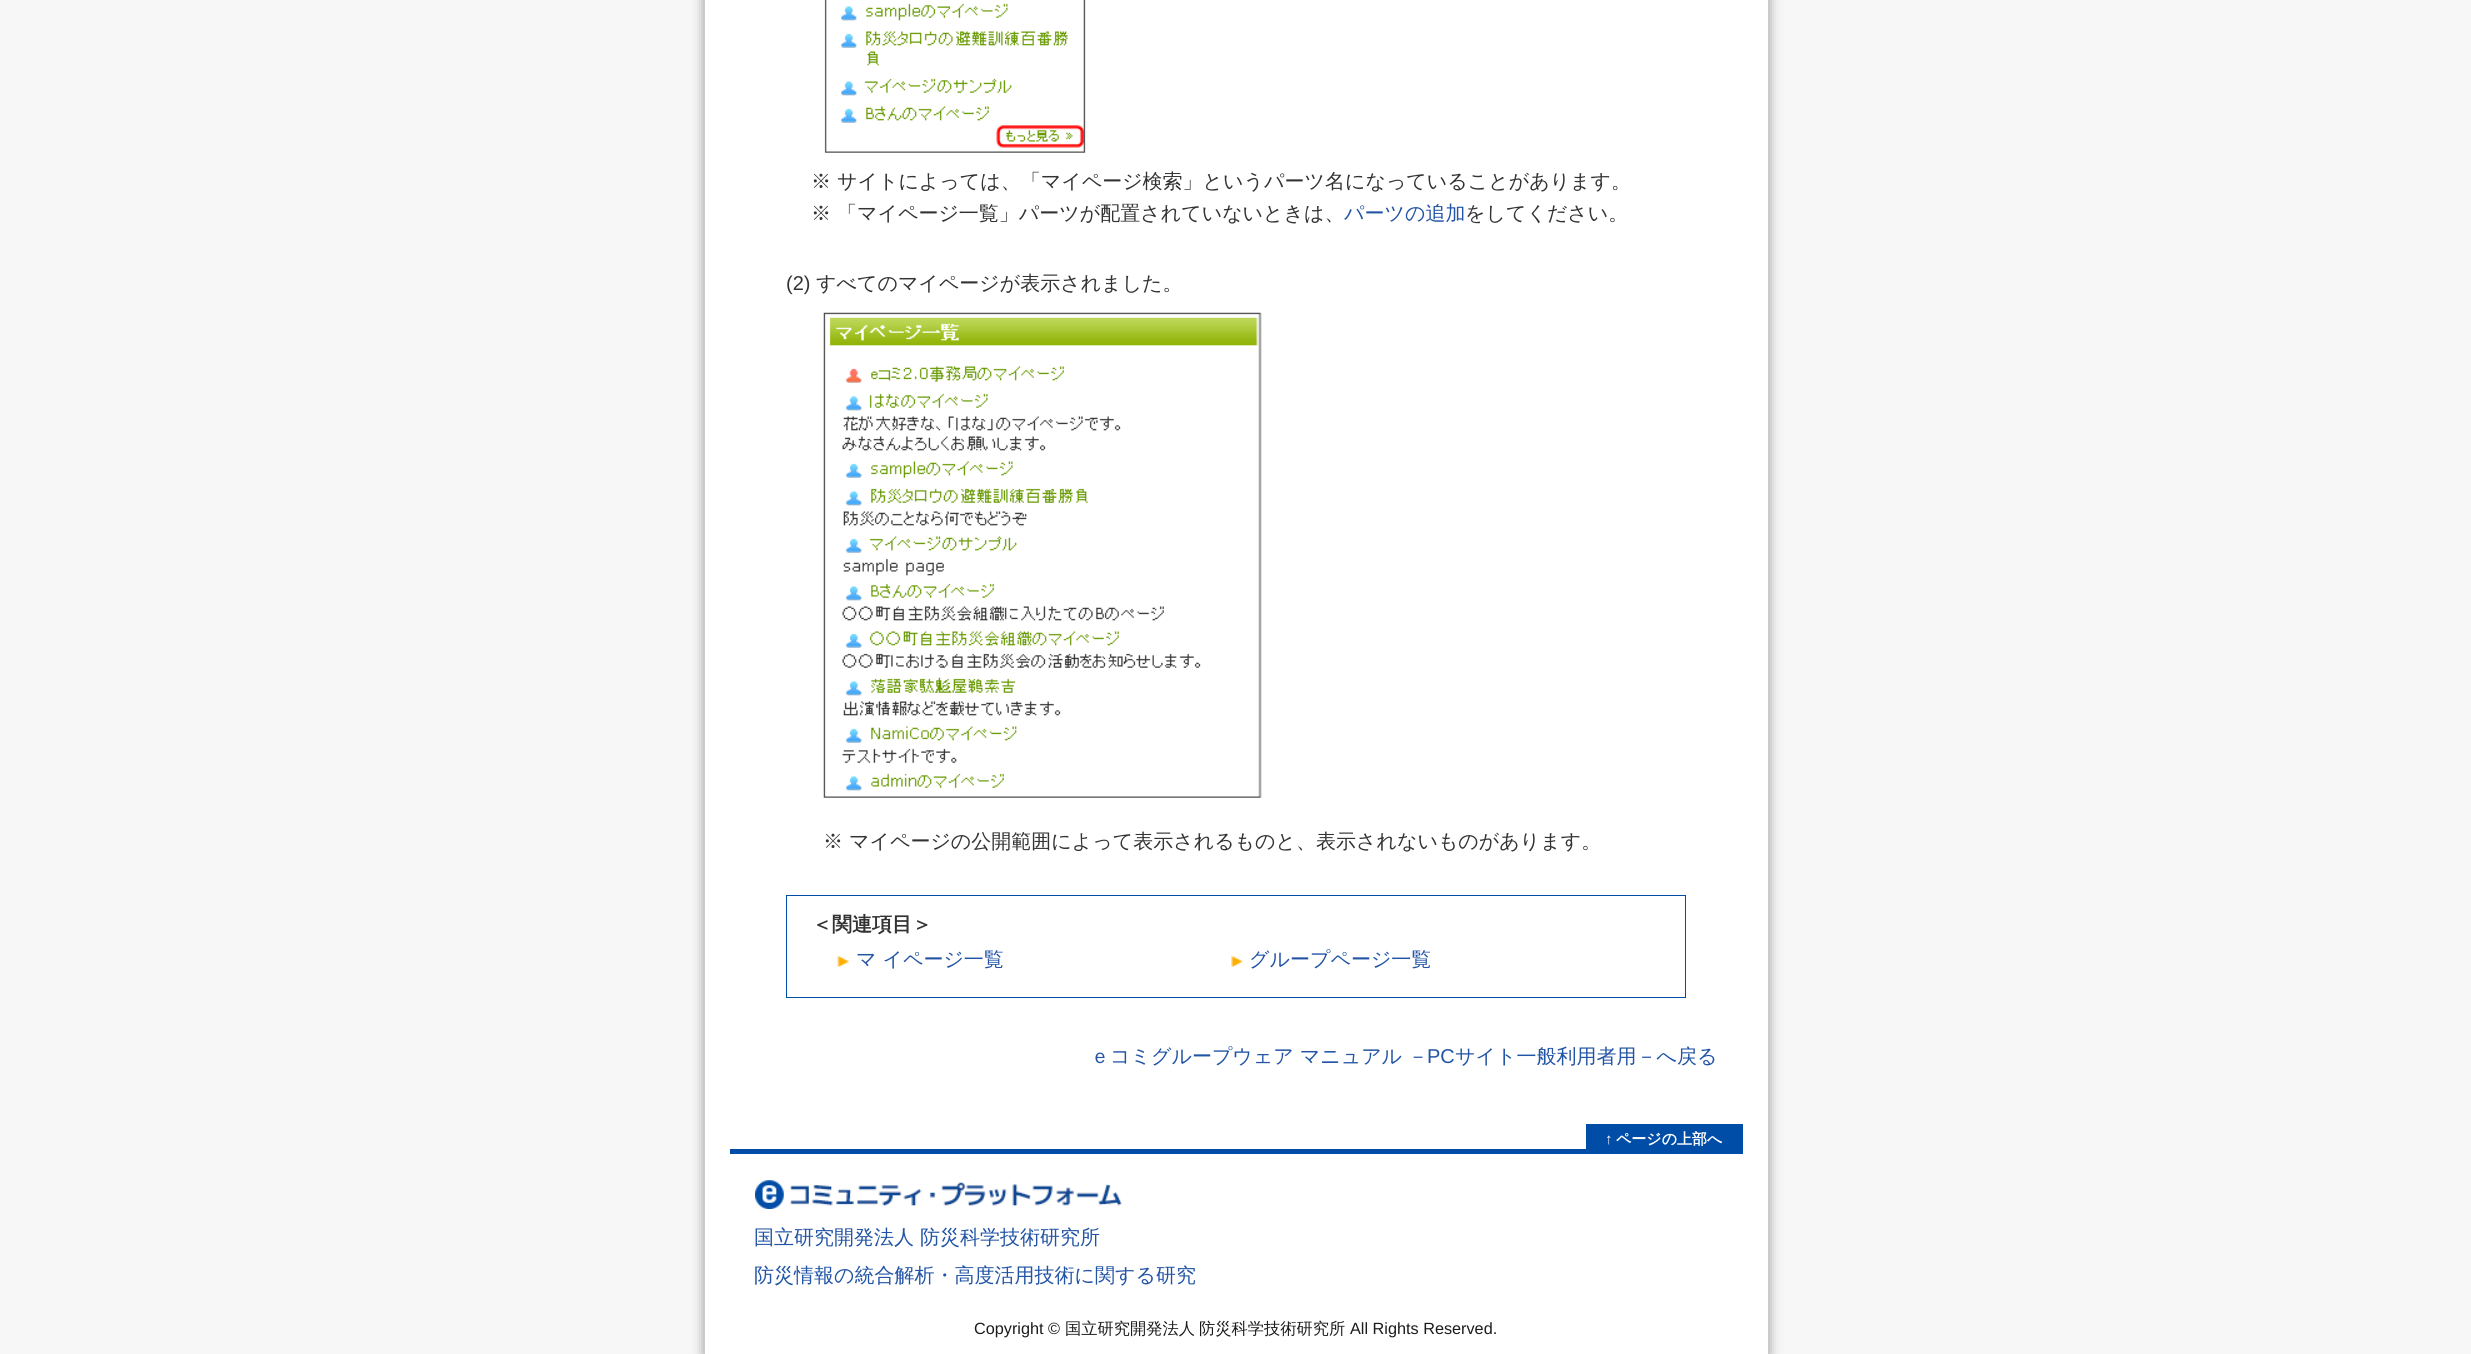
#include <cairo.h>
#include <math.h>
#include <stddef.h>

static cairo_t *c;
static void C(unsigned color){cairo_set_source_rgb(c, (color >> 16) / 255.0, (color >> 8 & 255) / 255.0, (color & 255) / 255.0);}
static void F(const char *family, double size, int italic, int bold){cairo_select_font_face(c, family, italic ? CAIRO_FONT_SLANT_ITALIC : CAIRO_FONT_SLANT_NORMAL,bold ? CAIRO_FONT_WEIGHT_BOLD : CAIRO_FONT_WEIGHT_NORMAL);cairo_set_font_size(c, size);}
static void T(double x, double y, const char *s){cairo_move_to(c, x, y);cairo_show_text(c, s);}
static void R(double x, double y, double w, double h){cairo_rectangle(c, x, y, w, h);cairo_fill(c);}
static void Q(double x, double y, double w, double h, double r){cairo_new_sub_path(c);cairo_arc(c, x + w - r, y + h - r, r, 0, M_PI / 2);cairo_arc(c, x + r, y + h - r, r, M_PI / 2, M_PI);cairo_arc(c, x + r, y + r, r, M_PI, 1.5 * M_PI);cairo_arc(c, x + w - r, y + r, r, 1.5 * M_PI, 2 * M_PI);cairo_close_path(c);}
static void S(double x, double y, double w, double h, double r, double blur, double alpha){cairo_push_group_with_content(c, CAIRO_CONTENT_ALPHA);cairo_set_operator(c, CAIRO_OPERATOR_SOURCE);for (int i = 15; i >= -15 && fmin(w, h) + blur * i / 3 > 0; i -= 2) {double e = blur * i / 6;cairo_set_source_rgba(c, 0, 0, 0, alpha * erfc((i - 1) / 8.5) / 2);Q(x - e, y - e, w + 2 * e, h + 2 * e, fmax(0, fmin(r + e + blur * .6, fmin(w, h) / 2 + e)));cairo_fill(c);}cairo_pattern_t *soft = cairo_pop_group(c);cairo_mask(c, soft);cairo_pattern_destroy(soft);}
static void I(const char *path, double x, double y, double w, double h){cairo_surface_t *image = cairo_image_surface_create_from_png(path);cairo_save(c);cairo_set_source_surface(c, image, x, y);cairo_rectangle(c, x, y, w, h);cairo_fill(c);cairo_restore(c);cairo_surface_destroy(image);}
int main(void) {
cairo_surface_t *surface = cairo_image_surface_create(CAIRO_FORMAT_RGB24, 2471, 1354);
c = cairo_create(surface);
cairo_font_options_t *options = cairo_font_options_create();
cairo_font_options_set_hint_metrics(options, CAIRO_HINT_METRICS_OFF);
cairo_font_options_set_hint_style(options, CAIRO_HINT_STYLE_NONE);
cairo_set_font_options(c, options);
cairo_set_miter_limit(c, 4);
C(0xf7f7f7);
cairo_paint(c);
C(0x999999);
S(704,-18,1065,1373,0,6,1);
C(0xffffff);
R(705,0,1063,1354);
C(0xcccccc);
R(1768,0,1,1354);
R(704,0,1,1354);
I("1.png",824,0,262,153);
F("WenQuanYi Zen Hei Medium",20,0,0);
C(0x333333);
T(811,188,"※ サイトによっては、「マイページ検索」というパーツ名になっていることがあります。");
T(811,220,"※ 「マイページ一覧」パーツが配置されていないときは、");
C(0x2254a5);
T(1344,220,"パーツの追加");
C(0x333333);
T(1465,220,"をしてください。");
F("Liberation Sans",20,0,0);
T(786,290,"(2)");
F("WenQuanYi Zen Hei Medium",20,0,0);
T(816,290,"すべてのマイページが表示されました。");
I("2.png",823,312,439,486);
T(823,848,"※ マイページの公開範囲によって表示されるものと、表示されないものがあります。");
cairo_rectangle(c,786.5,895.5,899,102);
C(0x004da8);
cairo_set_line_width(c,1);
cairo_stroke(c);
F("WenQuanYi Zen Hei",20,0,1);
C(0x333333);
T(812,931,"＜関連項目＞");
I("3.png",837,955,12,12);
F("WenQuanYi Zen Hei Medium",20,0,0);
C(0x2254a5);
T(856,966,"マ イページ一覧");
I("4.png",1231,955,12,12);
T(1249,966,"グループページ一覧");
T(1090,1063,"ｅコミグループウェア マニュアル －");
F("Liberation Sans",20,0,0);
T(1427,1063,"PC");
F("WenQuanYi Zen Hei Medium",20,0,0);
T(1455,1063,"サイト一般利用者用－へ戻る");
C(0x004da8);
R(1586,1124,157,25);
F("Liberation Sans",15,0,1);
C(0xffffff);
T(1605,1144,"↑");
F("WenQuanYi Zen Hei",15,0,1);
T(1616,1144,"ページの上部へ");
C(0x004da8);
R(730,1149,1013,5);
I("5.png",755,1180,367,29);
F("WenQuanYi Zen Hei Medium",20,0,0);
C(0x2254a5);
T(754,1244,"国立研究開発法人 防災科学技術研究所");
T(754,1282,"防災情報の統合解析・高度活用技術に関する研究");
F("Liberation Sans",16.25,0,0);
C(0x1b1b1b);
T(974,1334,"Copyright ©");
F("WenQuanYi Zen Hei Medium",16.25,0,0);
T(1065,1334,"国立研究開発法人");
T(1199,1334,"防災科学技術研究所");
F("Liberation Sans",16.25,0,0);
T(1350,1334,"All Rights Reserved.");
cairo_surface_write_to_png(surface, "o.png");
cairo_font_options_destroy(options);
cairo_destroy(c);
cairo_surface_destroy(surface);
return 0;
}
